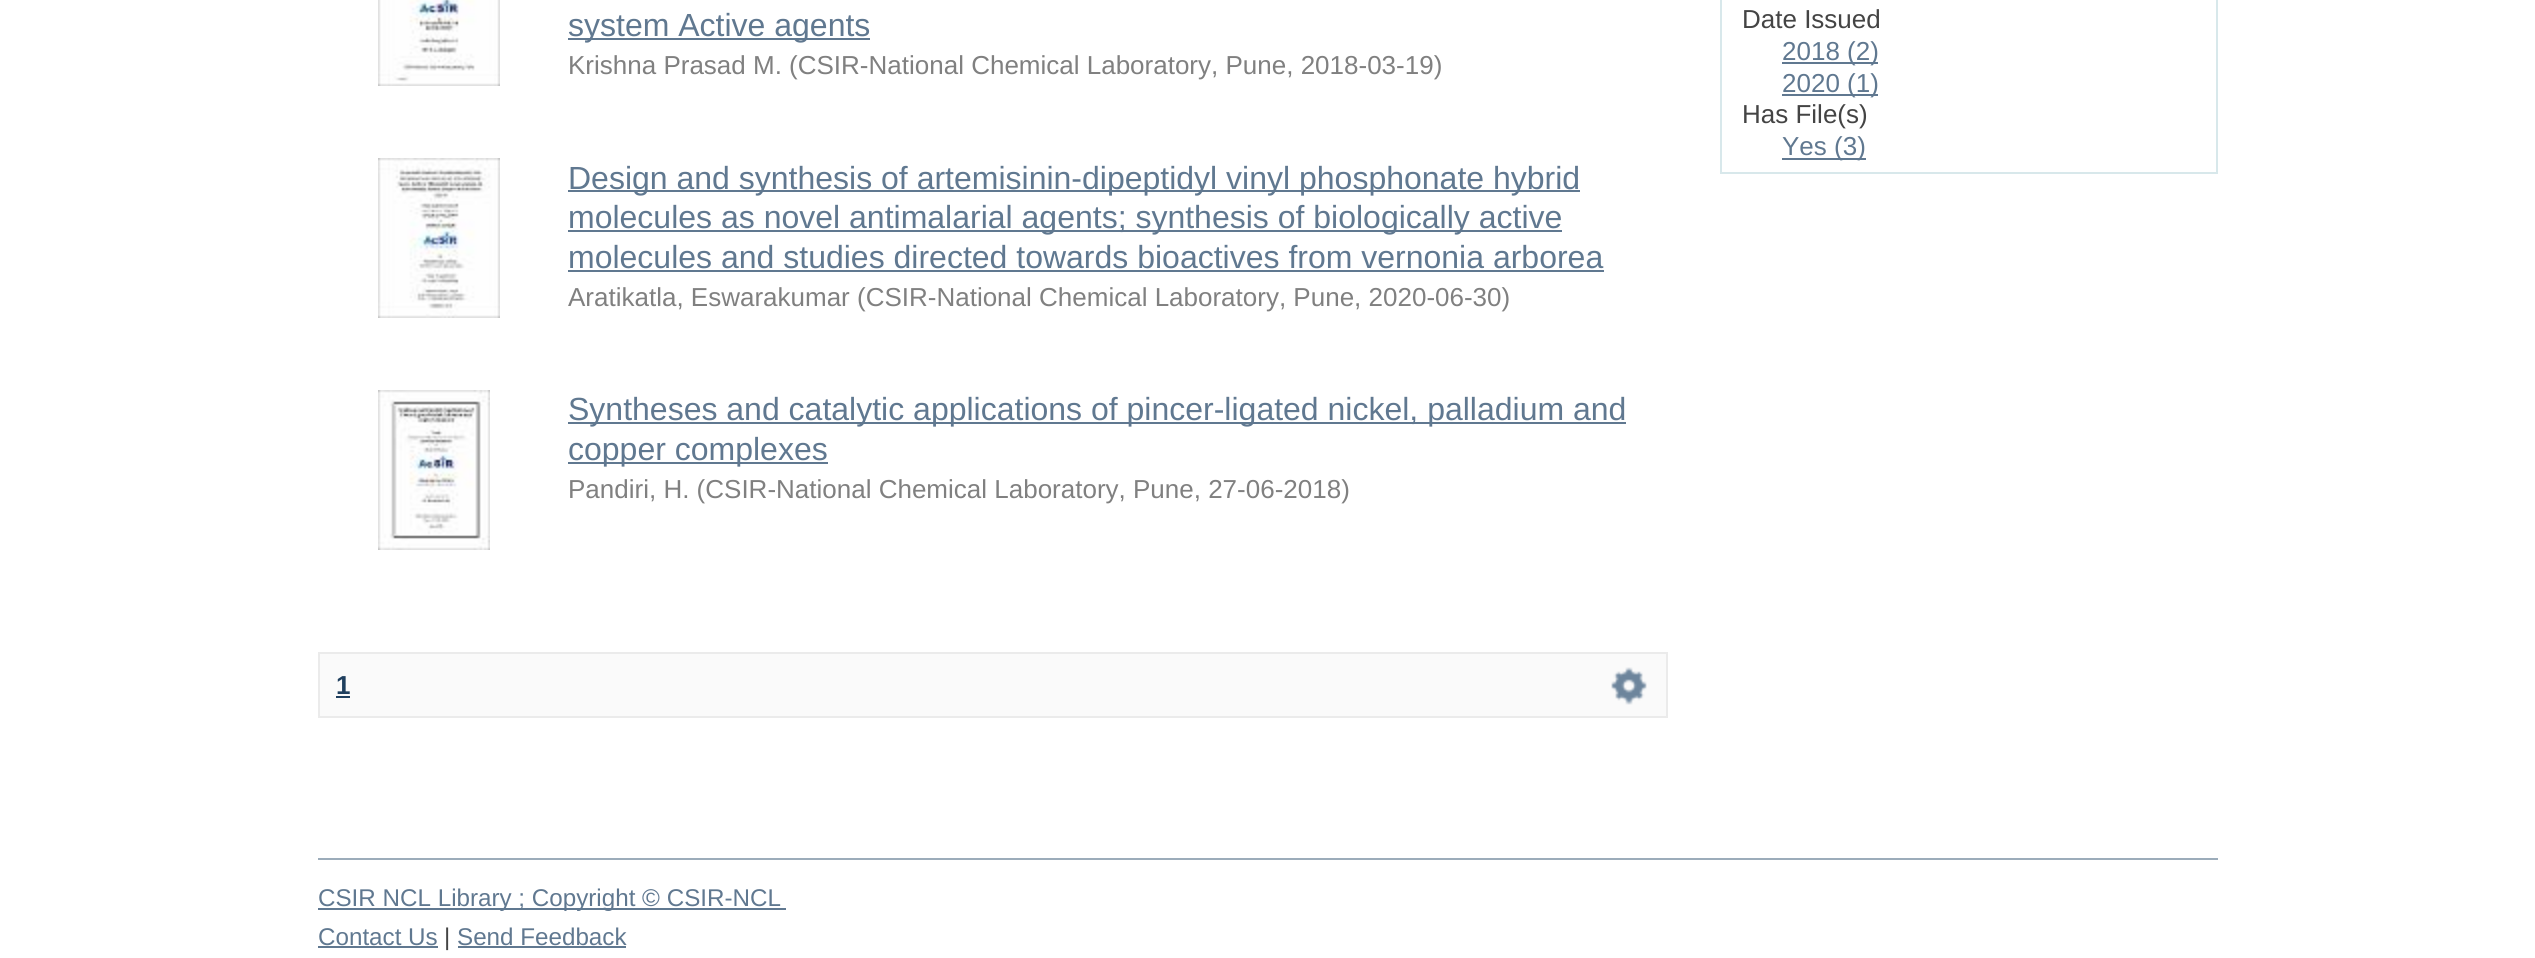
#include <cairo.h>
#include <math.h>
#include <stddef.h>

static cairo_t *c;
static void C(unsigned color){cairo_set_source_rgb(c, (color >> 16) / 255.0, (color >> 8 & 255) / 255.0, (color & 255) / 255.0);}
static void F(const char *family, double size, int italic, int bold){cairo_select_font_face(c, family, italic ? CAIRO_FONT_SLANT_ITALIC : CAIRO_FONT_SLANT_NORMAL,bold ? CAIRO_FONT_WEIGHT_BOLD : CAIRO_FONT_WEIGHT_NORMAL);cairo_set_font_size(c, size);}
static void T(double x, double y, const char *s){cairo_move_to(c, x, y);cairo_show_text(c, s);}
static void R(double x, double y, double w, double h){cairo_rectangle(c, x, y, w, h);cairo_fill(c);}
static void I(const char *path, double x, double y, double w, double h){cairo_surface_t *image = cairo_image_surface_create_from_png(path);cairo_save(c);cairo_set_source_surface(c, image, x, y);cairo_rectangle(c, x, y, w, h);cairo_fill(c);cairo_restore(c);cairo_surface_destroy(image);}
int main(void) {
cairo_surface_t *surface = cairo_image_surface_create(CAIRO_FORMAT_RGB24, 2535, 958);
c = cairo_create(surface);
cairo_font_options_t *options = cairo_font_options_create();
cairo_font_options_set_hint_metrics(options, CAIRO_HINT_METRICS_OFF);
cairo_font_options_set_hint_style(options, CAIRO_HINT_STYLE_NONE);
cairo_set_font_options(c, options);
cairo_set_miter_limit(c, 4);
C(0xffffff);
cairo_paint(c);
I("1.png",378,0,122,86);
C(0x607890);
R(568,38,302,2);
F("Liberation Sans",32,0,0);
T(568,36,"system Active agents");
F("Liberation Sans",26,0,0);
C(0x808080);
T(568,74,"Krishna Prasad M. (CSIR-National Chemical Laboratory, Pune, 2018-03-19)");
I("2.png",378,158,122,160);
C(0x607890);
R(568,190,1012,2);
F("Liberation Sans",32,0,0);
T(568,189,"Design and synthesis of artemisinin-dipeptidyl vinyl phosphonate hybrid");
R(568,230,994,2);
T(568,228,"molecules as novel antimalarial agents; synthesis of biologically active");
T(568,268,"molecules and studies directed towards bioactives from vernonia arborea");
R(568,270,1036,2);
F("Liberation Sans",26,0,0);
C(0x808080);
T(568,306,"Aratikatla, Eswarakumar (CSIR-National Chemical Laboratory, Pune, 2020-06-30)");
I("3.png",378,390,112,160);
C(0x607890);
R(568,422,1058,2);
F("Liberation Sans",32,0,0);
T(568,420,"Syntheses and catalytic applications of pincer-ligated nickel, palladium and");
R(568,462,260,2);
T(568,460,"copper complexes");
F("Liberation Sans",26,0,0);
C(0x808080);
T(568,498,"Pandiri, H. (CSIR-National Chemical Laboratory, Pune, 27-06-2018)");
C(0xfafafa);
cairo_rectangle(c,319,653,1348,64);
cairo_fill_preserve(c);
C(0xebebeb);
cairo_stroke(c);
F("Liberation Sans",26,0,1);
C(0x1f3f5e);
T(336,694,"1");
R(336,696,14,2);
I("4.png",1611,667,36,38);
C(0xd8e8eb);
R(2216,0,2,174);
R(1720,172,498,2);
R(1720,0,2,174);
F("Liberation Sans",26,0,0);
C(0x444444);
T(1742,28,"Date Issued");
C(0x607890);
R(1782,62,96,2);
T(1782,60,"2018 (2)");
R(1782,94,96,2);
T(1782,92,"2020 (1)");
C(0x444444);
T(1742,123,"Has File(s)");
C(0x607890);
R(1782,158,84,2);
T(1782,155,"Yes (3)");
C(0x9cacba);
R(318,858,1900,2);
C(0x607890);
R(318,908,468,2);
F("Liberation Sans",24.2,0,0);
T(318,906,"CSIR NCL Library ; Copyright © CSIR-NCL");
T(318,945,"Contact Us");
R(318,946,120,2);
C(0x444444);
T(444,945,"|");
C(0x607890);
T(457,945,"Send Feedback");
R(458,946,168,2);
cairo_surface_write_to_png(surface, "o.png");
cairo_font_options_destroy(options);
cairo_destroy(c);
cairo_surface_destroy(surface);
return 0;
}
